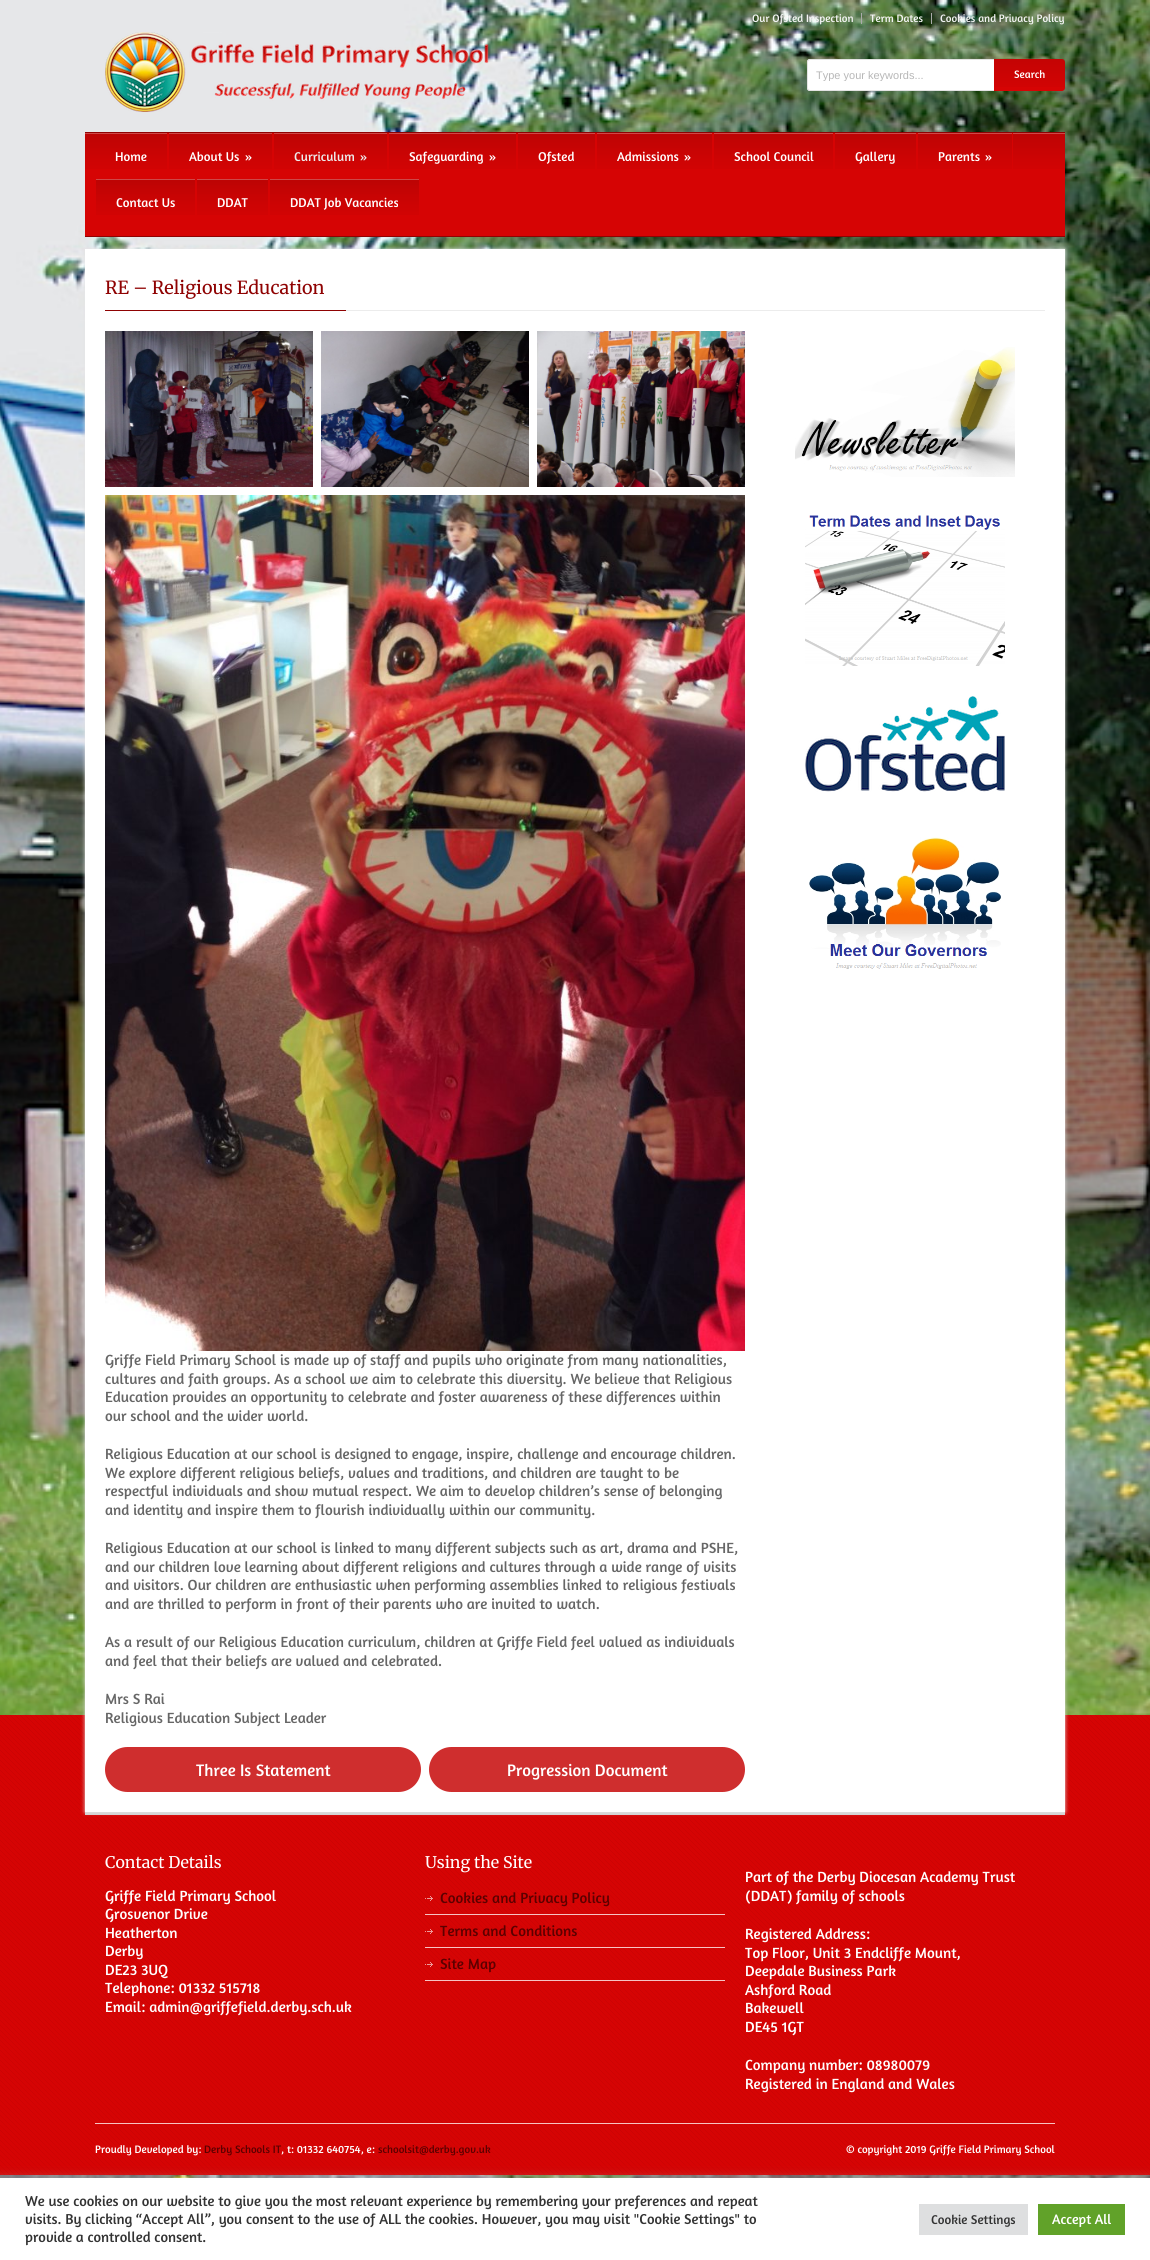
#include <cairo.h>
#include <math.h>
#include <stddef.h>

static cairo_t *c;
static void C(unsigned color){cairo_set_source_rgb(c, (color >> 16) / 255.0, (color >> 8 & 255) / 255.0, (color & 255) / 255.0);}
static void F(const char *family, double size, int italic, int bold){cairo_select_font_face(c, family, italic ? CAIRO_FONT_SLANT_ITALIC : CAIRO_FONT_SLANT_NORMAL,bold ? CAIRO_FONT_WEIGHT_BOLD : CAIRO_FONT_WEIGHT_NORMAL);cairo_set_font_size(c, size);}
static void T(double x, double y, const char *s){cairo_move_to(c, x, y);cairo_show_text(c, s);}
static void R(double x, double y, double w, double h){cairo_rectangle(c, x, y, w, h);cairo_fill(c);}
static void Q(double x, double y, double w, double h, double r){cairo_new_sub_path(c);cairo_arc(c, x + w - r, y + h - r, r, 0, M_PI / 2);cairo_arc(c, x + r, y + h - r, r, M_PI / 2, M_PI);cairo_arc(c, x + r, y + r, r, M_PI, 1.5 * M_PI);cairo_arc(c, x + w - r, y + r, r, 1.5 * M_PI, 2 * M_PI);cairo_close_path(c);}
static void S(double x, double y, double w, double h, double r, double blur, double alpha){cairo_push_group_with_content(c, CAIRO_CONTENT_ALPHA);cairo_set_operator(c, CAIRO_OPERATOR_SOURCE);for (int i = 15; i >= -15 && fmin(w, h) + blur * i / 3 > 0; i -= 2) {double e = blur * i / 6;cairo_set_source_rgba(c, 0, 0, 0, alpha * erfc((i - 1) / 8.5) / 2);Q(x - e, y - e, w + 2 * e, h + 2 * e, fmax(0, fmin(r + e + blur * .6, fmin(w, h) / 2 + e)));cairo_fill(c);}cairo_pattern_t *soft = cairo_pop_group(c);cairo_mask(c, soft);cairo_pattern_destroy(soft);}
static void I(const char *path, double x, double y, double w, double h){cairo_surface_t *image = cairo_image_surface_create_from_png(path);cairo_save(c);cairo_set_source_surface(c, image, x, y);cairo_rectangle(c, x, y, w, h);cairo_fill(c);cairo_restore(c);cairo_surface_destroy(image);}
int main(void) {
cairo_surface_t *surface = cairo_image_surface_create(CAIRO_FORMAT_RGB24, 1150, 2260);
c = cairo_create(surface);
cairo_font_options_t *options = cairo_font_options_create();
cairo_font_options_set_hint_metrics(options, CAIRO_HINT_METRICS_OFF);
cairo_font_options_set_hint_style(options, CAIRO_HINT_STYLE_NONE);
cairo_set_font_options(c, options);
cairo_set_miter_limit(c, 4);
C(0xffffff);
cairo_paint(c);
I("1.png",0,0,1150,2178);
C(0xababab);
R(861,13,1,11);
F("Amaranth",11,0,0);
C(0xf5f5f5);
T(752,22,"Our Ofsted Inspection");
C(0xababab);
R(931,13,1,11);
C(0xf5f5f5);
T(870,22,"Term Dates");
T(940,22,"Cookies and Privacy Policy");
I("2.png",105,32,384,80);
C(0xffffff);
cairo_new_path(c);
cairo_move_to(c,810,59);
cairo_line_to(c,994,59);
cairo_line_to(c,994,91);
cairo_line_to(c,810,91);
cairo_curve_to(c,808.5,91,807,89.5,807,88);
cairo_line_to(c,807,62);
cairo_curve_to(c,807,60.5,808.5,59,810,59);
cairo_close_path(c);
cairo_fill(c);
C(0xe3e3e3);
cairo_set_fill_rule(c,CAIRO_FILL_RULE_EVEN_ODD);
cairo_new_path(c);
cairo_move_to(c,810,59);
cairo_line_to(c,994,59);
cairo_line_to(c,994,91);
cairo_line_to(c,810,91);
cairo_curve_to(c,808,91,807,90,807,88);
cairo_line_to(c,807,62);
cairo_curve_to(c,807,60,808,59,810,59);
cairo_close_path(c);
cairo_move_to(c,810,60);
cairo_line_to(c,994,60);
cairo_line_to(c,994,90);
cairo_line_to(c,810,90);
cairo_curve_to(c,809,90,808,89,808,88);
cairo_line_to(c,808,62);
cairo_curve_to(c,808,61,809,60,810,60);
cairo_close_path(c);
cairo_fill(c);
cairo_save(c);
cairo_set_fill_rule(c,CAIRO_FILL_RULE_WINDING);
cairo_rectangle(c,816,69,170,12);
cairo_clip(c);
F("Liberation Sans",11,0,0);
C(0xb7b7b7);
T(816,79,"Type your keywords...");
cairo_restore(c);
C(0xd60404);
cairo_new_path(c);
cairo_move_to(c,994,59);
cairo_line_to(c,1062,59);
cairo_curve_to(c,1063.5,59,1065,60.5,1065,62);
cairo_line_to(c,1065,88);
cairo_curve_to(c,1065,89.5,1063.5,91,1062,91);
cairo_line_to(c,994,91);
cairo_close_path(c);
cairo_fill(c);
I("3.png",994,59,71,28);
C(0xffffff);
T(1014,78,"Search");
C(0xd60404);
R(85,133,980,103);
I("4.png",85,133,980,36);
C(0x8f0202);
R(85,132,980,1);
R(85,236,980,1);
C(0xd60404);
R(95,133,73,36);
I("5.png",95,133,72,36);
F("Amaranth",13,0,0);
C(0xffffff);
T(115,161,"Home");
C(0xd60404);
R(168,133,105,36);
I("6.png",169,133,103,36);
C(0xffffff);
T(189,161,"About Us");
T(245,161,"»");
C(0xd60404);
R(273,133,115,36);
I("7.png",274,133,113,36);
C(0xededed);
T(294,161,"Curriculum");
T(360,161,"»");
C(0xd60404);
R(388,133,129,36);
I("8.png",389,133,127,36);
C(0xffffff);
T(409,161,"Safeguarding");
T(489,161,"»");
C(0xd60404);
R(517,133,79,36);
I("9.png",518,133,77,36);
C(0xffffff);
T(538,161,"Ofsted");
C(0xd60404);
R(596,133,117,36);
I("10.png",597,133,115,36);
C(0xffffff);
T(617,161,"Admissions");
T(684,161,"»");
C(0xd60404);
R(713,133,121,36);
I("11.png",714,133,119,36);
C(0xffffff);
T(734,161,"School Council");
C(0xd60404);
R(834,133,83,36);
I("12.png",835,133,81,36);
C(0xffffff);
T(855,161,"Gallery");
C(0xd60404);
R(917,133,96,36);
I("13.png",918,133,94,36);
C(0xffffff);
T(938,161,"Parents");
T(985,161,"»");
I("14.png",96,179,99,36);
T(116,207,"Contact Us");
I("15.png",197,179,71,36);
T(217,207,"DDAT");
I("16.png",270,179,149,36);
T(290,207,"DDAT Job Vacancies");
C(0xd60404);
R(0,1715,1150,460);
I("25.png",0,1715,1150,460);
C(0xd2d2d2);
R(85,1812,980,3);
C(0xe5e5e5);
S(85,249,980,1563,0,2,1);
C(0xffffff);
R(85,249,980,1563);
C(0x8f0202);
R(105,310,241,1);
F("Merriweather",18,0,0);
T(105,294,"RE – Religious Education");
C(0xececec);
R(346,310,699,1);
I("17.png",795,347,220,130);
I("18.png",805,515,200,151);
I("19.png",805,696,200,96);
I("20.png",809,837,192,132);
I("21.png",105,331,208,156);
I("22.png",321,331,208,156);
I("23.png",537,331,208,156);
I("24.png",105,495,640,856);
F("Amaranth",15,0,0);
C(0x666666);
T(105,1365,"Griffe Field Primary School is made up of staff and pupils who originate from many nationalities,");
T(105,1384,"cultures and faith groups. As a school we aim to celebrate this diversity. We believe that Religious");
T(105,1402,"Education provides an opportunity to celebrate and foster awareness of these differences within");
T(105,1421,"our school and the wider world.");
T(105,1459,"Religious Education at our school is designed to engage, inspire, challenge and encourage children.");
T(105,1478,"We explore different religious beliefs, values and traditions, and children are taught to be");
T(105,1496,"respectful individuals and show mutual respect. We aim to develop children’s sense of belonging");
T(105,1515,"and identity and inspire them to flourish individually within our community.");
T(105,1553,"Religious Education at our school is linked to many different subjects such as art, drama and PSHE,");
T(105,1572,"and our children love learning about different religions and cultures through a wide range of visits");
T(105,1590,"and visitors. Our children are enthusiastic when performing assemblies linked to religious festivals");
T(105,1609,"and are thrilled to perform in front of their parents who are invited to watch.");
T(105,1647,"As a result of our Religious Education curriculum, children at Griffe Field feel valued as individuals");
T(105,1666,"and feel that their beliefs are valued and celebrated.");
T(105,1704,"Mrs S Rai");
T(105,1723,"Religious Education Subject Leader");
C(0xcf2e2e);
Q(105,1747,316,45,22.5);
cairo_fill(c);
F("Amaranth",16.9,0,0);
C(0xffffff);
T(196,1776,"Three Is Statement");
C(0xcf2e2e);
Q(429,1747,316,45,22.5);
cairo_fill(c);
C(0xffffff);
T(507,1776,"Progression Document");
F("Merriweather",16,0,0);
T(105,1868,"Contact Details");
F("Amaranth",15,0,0);
T(105,1901,"Griffe Field Primary School");
T(105,1919,"Grosvenor Drive");
T(105,1938,"Heatherton");
T(105,1956,"Derby");
T(105,1975,"DE23 3UQ");
T(105,1993,"Telephone: 01332 515718");
T(105,2012,"Email: admin@griffefield.derby.sch.uk");
F("Merriweather",16,0,0);
T(425,1868,"Using the Site");
I("26.png",425,1896,8,5);
C(0xf7c3c3);
R(425,1914,300,1);
F("Amaranth",15,0,0);
C(0x5c0000);
T(440,1903,"Cookies and Privacy Policy");
I("27.png",425,1929,8,5);
C(0xf7c3c3);
R(425,1947,300,1);
C(0x5c0000);
T(440,1936,"Terms and Conditions");
I("28.png",425,1962,8,5);
C(0xf7c3c3);
R(425,1980,300,1);
C(0x5c0000);
T(440,1969,"Site Map");
C(0xffffff);
T(745,1882,"Part of the Derby Diocesan Academy Trust");
T(745,1901,"(DDAT) family of schools");
T(745,1939,"Registered Address:");
T(745,1958,"Top Floor, Unit 3 Endcliffe Mount,");
T(745,1976,"Deepdale Business Park");
T(745,1995,"Ashford Road");
T(745,2013,"Bakewell");
T(745,2032,"DE45 1GT");
T(745,2070,"Company number: 08980079");
T(745,2089,"Registered in England and Wales");
C(0xf7c3c3);
R(95,2123,960,1);
F("Amaranth",11,0,0);
C(0xffffff);
T(95,2153,"Proudly Developed by:");
C(0x5c0000);
T(204,2153,"Derby Schools IT");
C(0xffffff);
T(281,2153,", t: 01332 640754, e:");
C(0x5c0000);
T(378,2153,"schoolsit@derby.gov.uk");
C(0xffffff);
T(846,2153,"© copyright 2019 Griffe Field Primary School");
C(0xacabab);
S(0,2177,1150,82,0,5,.3);
C(0xffffff);
R(0,2178,1150,82);
F("Amaranth",14.65,0,0);
C(0x333333);
T(25,2206,"We use cookies on our website to give you the most relevant experience by remembering your preferences and repeat");
T(25,2224,"visits. By clicking “Accept All”, you consent to the use of ALL the cookies. However, you may visit \"Cookie Settings\" to");
T(25,2242,"provide a controlled consent.");
C(0xdedfe0);
R(919,2204,109,31);
F("Amaranth",13,0,0);
C(0x333333);
T(931,2224,"Cookie Settings");
C(0x61a229);
R(1038,2204,87,31);
F("Amaranth",14,0,0);
C(0xffffff);
T(1052,2224,"Accept All");
cairo_surface_write_to_png(surface, "o.png");
cairo_font_options_destroy(options);
cairo_destroy(c);
cairo_surface_destroy(surface);
return 0;
}
